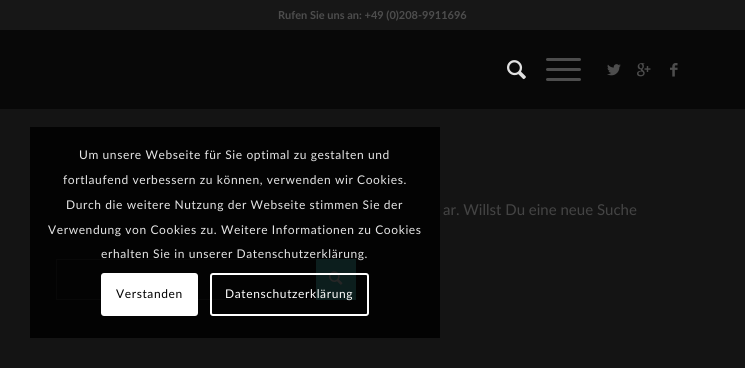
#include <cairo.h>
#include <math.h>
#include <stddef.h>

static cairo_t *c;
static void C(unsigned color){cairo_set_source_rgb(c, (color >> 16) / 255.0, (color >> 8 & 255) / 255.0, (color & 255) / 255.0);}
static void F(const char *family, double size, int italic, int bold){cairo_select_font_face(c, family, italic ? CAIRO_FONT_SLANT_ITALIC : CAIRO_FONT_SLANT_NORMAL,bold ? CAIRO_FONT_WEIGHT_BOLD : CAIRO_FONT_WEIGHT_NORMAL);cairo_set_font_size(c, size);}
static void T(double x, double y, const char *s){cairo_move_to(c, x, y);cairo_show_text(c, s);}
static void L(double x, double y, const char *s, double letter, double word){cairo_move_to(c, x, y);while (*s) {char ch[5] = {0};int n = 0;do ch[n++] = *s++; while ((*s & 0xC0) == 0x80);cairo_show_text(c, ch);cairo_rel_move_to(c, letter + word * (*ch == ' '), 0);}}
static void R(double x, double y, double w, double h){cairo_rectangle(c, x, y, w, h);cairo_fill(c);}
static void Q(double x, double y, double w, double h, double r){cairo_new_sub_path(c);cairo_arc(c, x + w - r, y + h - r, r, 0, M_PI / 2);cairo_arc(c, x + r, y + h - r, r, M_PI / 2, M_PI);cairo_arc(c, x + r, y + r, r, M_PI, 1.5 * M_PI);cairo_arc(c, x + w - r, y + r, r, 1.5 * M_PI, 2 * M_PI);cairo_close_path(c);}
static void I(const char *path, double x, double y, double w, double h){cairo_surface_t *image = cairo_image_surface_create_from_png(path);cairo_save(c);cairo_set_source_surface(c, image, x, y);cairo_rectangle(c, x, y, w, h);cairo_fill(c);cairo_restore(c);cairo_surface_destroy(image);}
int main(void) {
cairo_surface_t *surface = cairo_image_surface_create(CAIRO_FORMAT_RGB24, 745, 368);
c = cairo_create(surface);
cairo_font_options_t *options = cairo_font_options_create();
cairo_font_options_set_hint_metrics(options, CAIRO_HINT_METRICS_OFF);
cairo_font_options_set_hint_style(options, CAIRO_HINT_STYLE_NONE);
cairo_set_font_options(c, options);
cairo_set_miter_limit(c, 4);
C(0x141414);
cairo_paint(c);
C(0x111111);
R(57,260,259,39);
cairo_rectangle(c,56.5,259.5,299,40);
C(0x363636);
cairo_set_line_width(c,1);
cairo_stroke(c);
C(0x4ecac2);
R(316,259,40,41);
I("5.png",329,271,14,14);
cairo_set_source_rgba(c,0,0,0,0.85);
R(30,127,410,211);
F("Lato",12,0,0);
C(0xe6e6e6);
L(79,159,"Um unsere Webseite für Sie optimal zu gestalten und",.6,0);
L(63,184,"fortlaufend verbessern zu können, verwenden wir Cookies.",.6,0);
L(66,209,"Durch die weitere Nutzung der Webseite stimmen Sie der",.6,0);
L(48,234,"Verwendung von Cookies zu. Weitere Informationen zu Cookies",.6,0);
L(101,258,"erhalten Sie in unserer Datenschutzerklärung.",.6,0);
C(0xffffff);
Q(101,273,97,43,3);
cairo_fill(c);
C(0x000000);
L(116,298,"Verstanden",.6,0);
Q(211,274,157,41,2);
C(0xffffff);
cairo_set_line_width(c,2);
cairo_stroke(c);
L(225,298,"Datenschutzerklärung",.6,0);
C(0x171717);
R(0,0,745,30);
F("Lato",11,0,1);
C(0x4d4d4d);
T(278,19,"Rufen Sie uns an: +49 (0)208-9911696");
C(0x080808);
R(0,30,745,79);
I("1.png",507,60,19,20);
C(0x4d4d4d);
Q(546,68,35,3,1.5);
cairo_fill(c);
Q(546,58,35,3,1.5);
cairo_fill(c);
Q(546,78,35,3,1.5);
cairo_fill(c);
I("2.png",607,64,14,12);
I("3.png",637,63,14,14);
I("4.png",670,63,8,14);
F("Lato",15,0,0);
C(0x444444);
T(443,215,"ar. Willst Du eine neue Suche");
cairo_surface_write_to_png(surface, "o.png");
cairo_font_options_destroy(options);
cairo_destroy(c);
cairo_surface_destroy(surface);
return 0;
}
